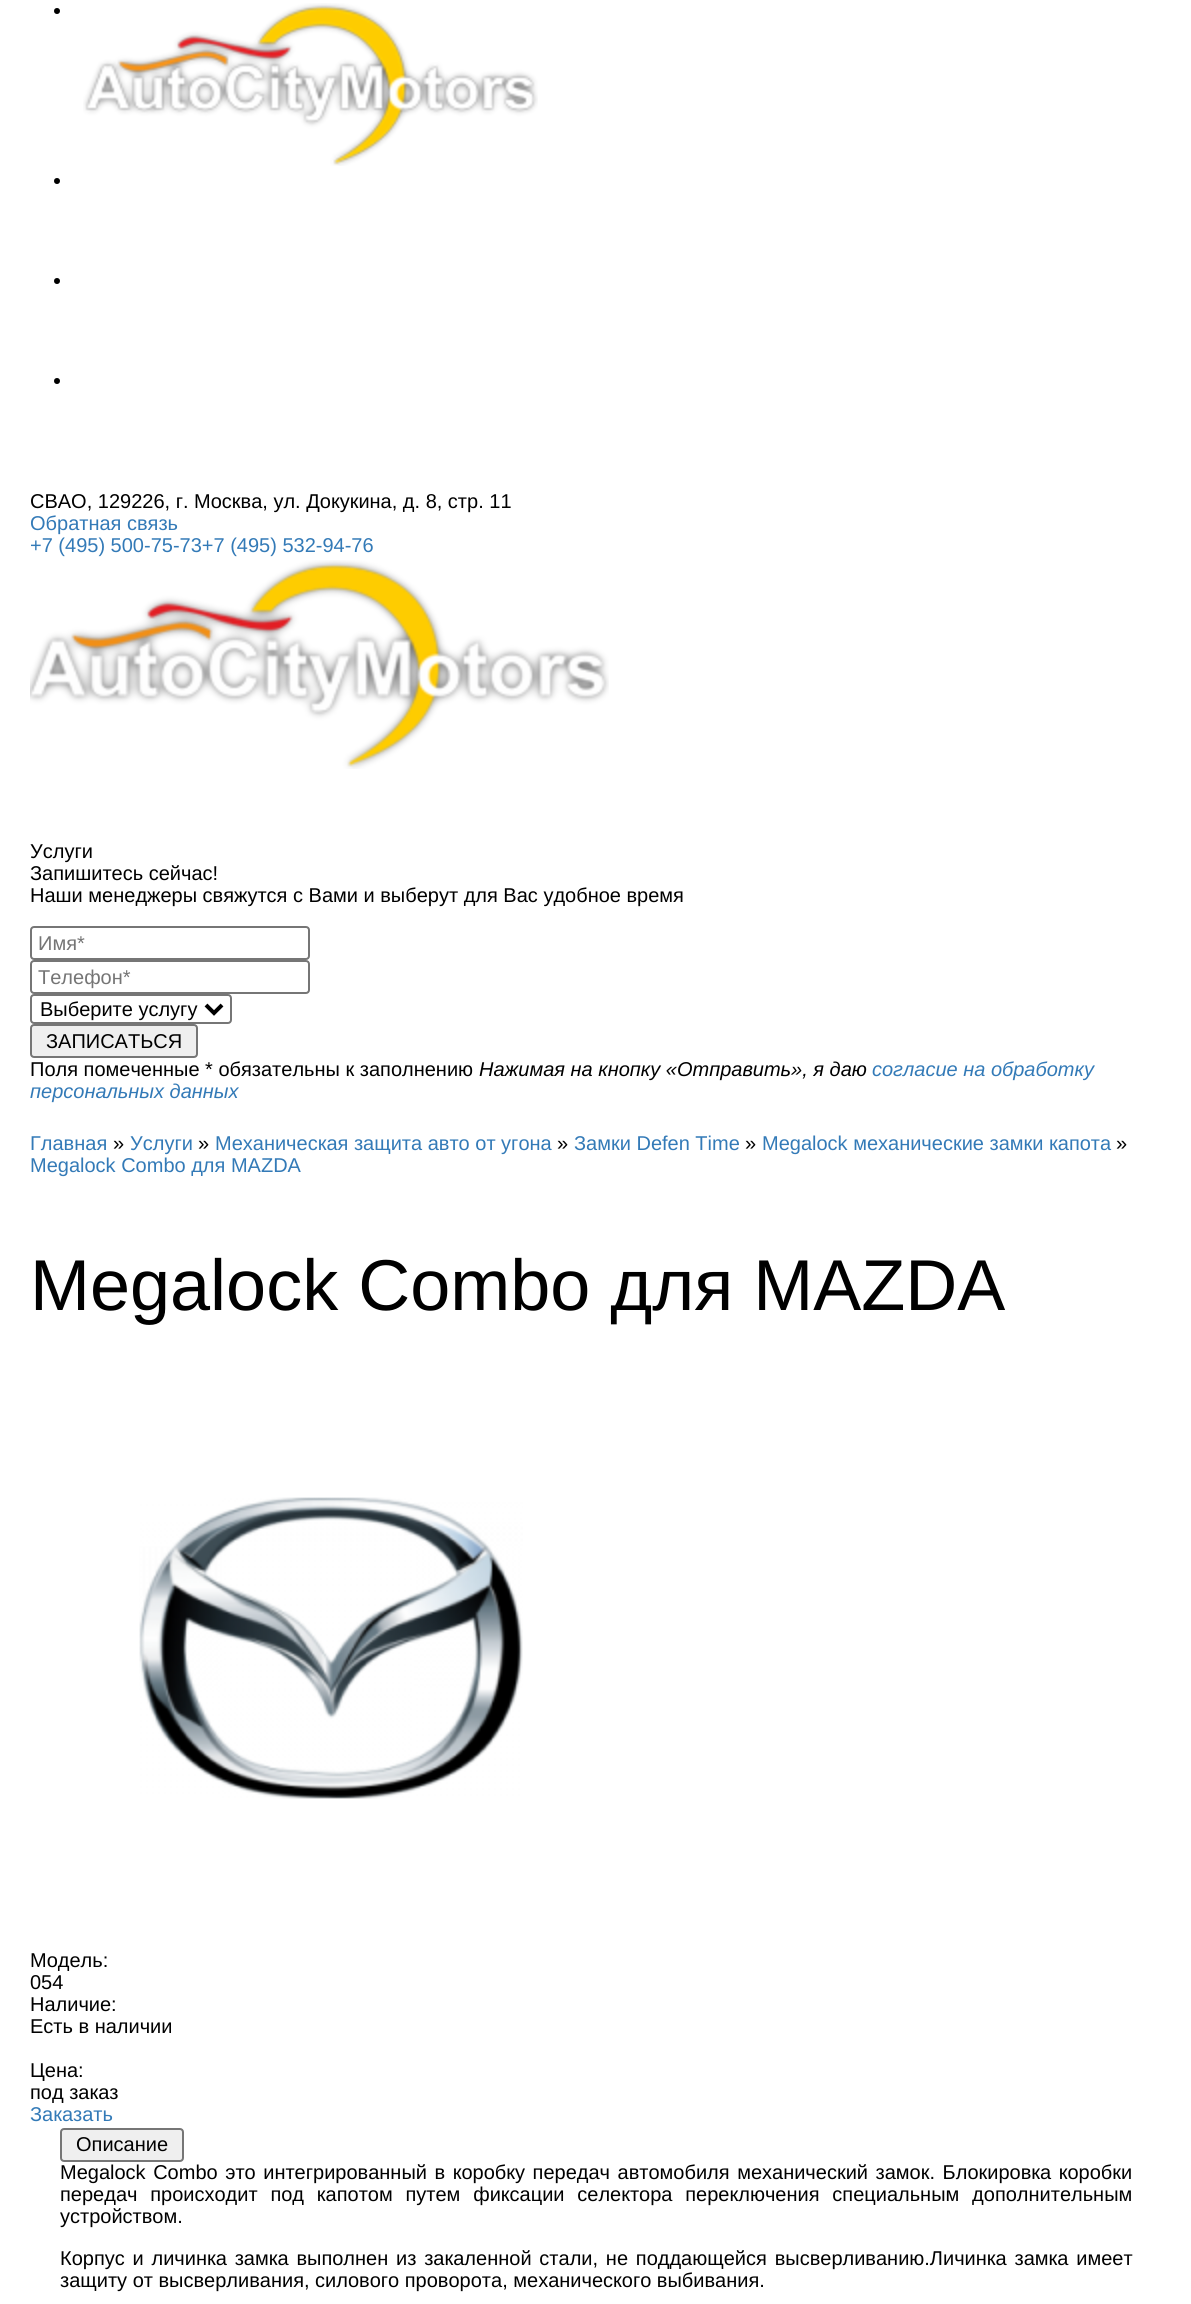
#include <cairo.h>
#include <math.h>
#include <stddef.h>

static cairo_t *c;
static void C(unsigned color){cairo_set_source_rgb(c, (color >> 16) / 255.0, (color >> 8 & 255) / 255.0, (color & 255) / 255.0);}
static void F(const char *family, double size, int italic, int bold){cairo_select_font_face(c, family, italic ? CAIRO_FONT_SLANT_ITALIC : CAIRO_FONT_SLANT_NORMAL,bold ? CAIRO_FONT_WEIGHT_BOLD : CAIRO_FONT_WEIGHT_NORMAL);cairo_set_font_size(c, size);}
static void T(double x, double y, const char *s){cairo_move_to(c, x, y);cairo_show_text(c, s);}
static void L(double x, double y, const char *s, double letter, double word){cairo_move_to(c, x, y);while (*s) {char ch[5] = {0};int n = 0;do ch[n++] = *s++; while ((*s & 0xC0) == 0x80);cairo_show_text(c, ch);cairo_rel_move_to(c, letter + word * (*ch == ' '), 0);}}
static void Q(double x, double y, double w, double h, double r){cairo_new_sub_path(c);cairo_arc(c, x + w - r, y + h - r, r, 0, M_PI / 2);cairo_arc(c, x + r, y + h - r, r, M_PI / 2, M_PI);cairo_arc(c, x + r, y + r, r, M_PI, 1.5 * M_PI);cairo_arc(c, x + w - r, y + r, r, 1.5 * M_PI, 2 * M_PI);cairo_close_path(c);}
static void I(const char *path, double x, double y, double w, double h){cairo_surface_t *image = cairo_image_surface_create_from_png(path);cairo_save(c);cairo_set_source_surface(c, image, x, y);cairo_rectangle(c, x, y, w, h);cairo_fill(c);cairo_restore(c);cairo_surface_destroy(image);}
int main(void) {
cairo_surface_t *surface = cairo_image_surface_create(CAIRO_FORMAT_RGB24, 1191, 2304);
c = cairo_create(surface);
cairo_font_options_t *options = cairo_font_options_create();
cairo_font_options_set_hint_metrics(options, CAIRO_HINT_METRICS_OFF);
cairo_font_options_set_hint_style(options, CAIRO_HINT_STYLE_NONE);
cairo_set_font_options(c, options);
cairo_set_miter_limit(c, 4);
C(0xffffff);
cairo_paint(c);
C(0x000000);
cairo_arc(c,57,11,3,0,2 * M_PI);
cairo_fill(c);
I("1.png",83,3,455,163);
cairo_arc(c,57,181,3,0,2 * M_PI);
cairo_fill(c);
cairo_arc(c,57,281,3,0,2 * M_PI);
cairo_fill(c);
cairo_arc(c,57,381,3,0,2 * M_PI);
cairo_fill(c);
F("Liberation Sans",20,0,0);
T(30,508,"СВАО, 129226, г. Москва, ул. Докукина, д. 8, стр. 11");
C(0x337ab7);
T(30,530,"Обратная связь");
T(30,552,"+7 (495) 500-75-73+7 (495) 532-94-76");
I("2.png",30,560,579,209);
C(0x000000);
T(30,858,"Услуги");
T(30,880,"Запишитесь сейчас!");
T(30,902,"Наши менеджеры свяжутся с Вами и выберут для Вас удобное время");
Q(31,927,278,32,3);
C(0x767676);
cairo_stroke(c);
C(0x757575);
T(38,950,"Имя*");
Q(31,961,278,32,3);
C(0x767676);
cairo_stroke(c);
C(0x757575);
T(38,984,"Телефон*");
Q(31,995,200,28,3);
C(0x767676);
cairo_stroke(c);
cairo_new_path(c);
cairo_move_to(c,206,1005);
cairo_line_to(c,214,1013);
cairo_line_to(c,222,1005);
C(0x000000);
cairo_set_line_width(c,4);
cairo_stroke(c);
T(40,1016,"Выберите услугу");
C(0xefefef);
Q(31,1025,166,32,3);
cairo_fill_preserve(c);
C(0x767676);
cairo_set_line_width(c,2);
cairo_stroke(c);
C(0x000000);
T(46,1048,"ЗАПИСАТЬСЯ");
T(30,1076,"Поля помеченные * обязательны к заполнению");
F("Liberation Sans",20,1,0);
T(479,1076,"Нажимая на кнопку «Отправить», я даю");
C(0x337ab7);
T(872,1076,"согласие на обработку");
T(30,1098,"персональных данных");
F("Liberation Sans",20,0,0);
T(30,1150,"Главная");
C(0x000000);
T(113,1150,"»");
C(0x337ab7);
T(130,1150,"Услуги");
C(0x000000);
T(198,1150,"»");
C(0x337ab7);
T(215,1150,"Механическая защита авто от угона");
C(0x000000);
T(557,1150,"»");
C(0x337ab7);
T(574,1150,"Замки Defen Time");
C(0x000000);
T(745,1150,"»");
C(0x337ab7);
T(762,1150,"Megalock механические замки капота");
C(0x000000);
T(1116,1150,"»");
C(0x337ab7);
T(30,1172,"Megalock Combo для MAZDA");
F("Liberation Sans",72,0,0);
C(0x000000);
T(30,1310,"Megalock Combo для MAZDA");
I("3.png",139,1497,384,302);
F("Liberation Sans",20,0,0);
T(30,1967,"Модель:");
T(30,1989,"054");
T(30,2011,"Наличие:");
T(30,2033,"Есть в наличии");
T(30,2077,"Цена:");
T(30,2099,"под заказ");
C(0x337ab7);
T(30,2121,"Заказать");
C(0xefefef);
Q(61,2129,122,32,3);
cairo_fill_preserve(c);
C(0x767676);
cairo_stroke(c);
C(0x000000);
T(76,2151,"Описание");
L(60,2179,"Megalock Combo это интегрированный в коробку передач автомобиля механический замок. Блокировка коробки",0,2);
L(60,2201,"передач происходит под капотом путем фиксации селектора переключения специальным дополнительным",0,7.25);
T(60,2223,"устройством.");
L(60,2265,"Корпус и личинка замка выполнен из закаленной стали, не поддающейся высверливанию.Личинка замка имеет",0,2.25);
T(60,2287,"защиту от высверливания, силового проворота, механического выбивания.");
cairo_surface_write_to_png(surface, "o.png");
cairo_font_options_destroy(options);
cairo_destroy(c);
cairo_surface_destroy(surface);
return 0;
}
